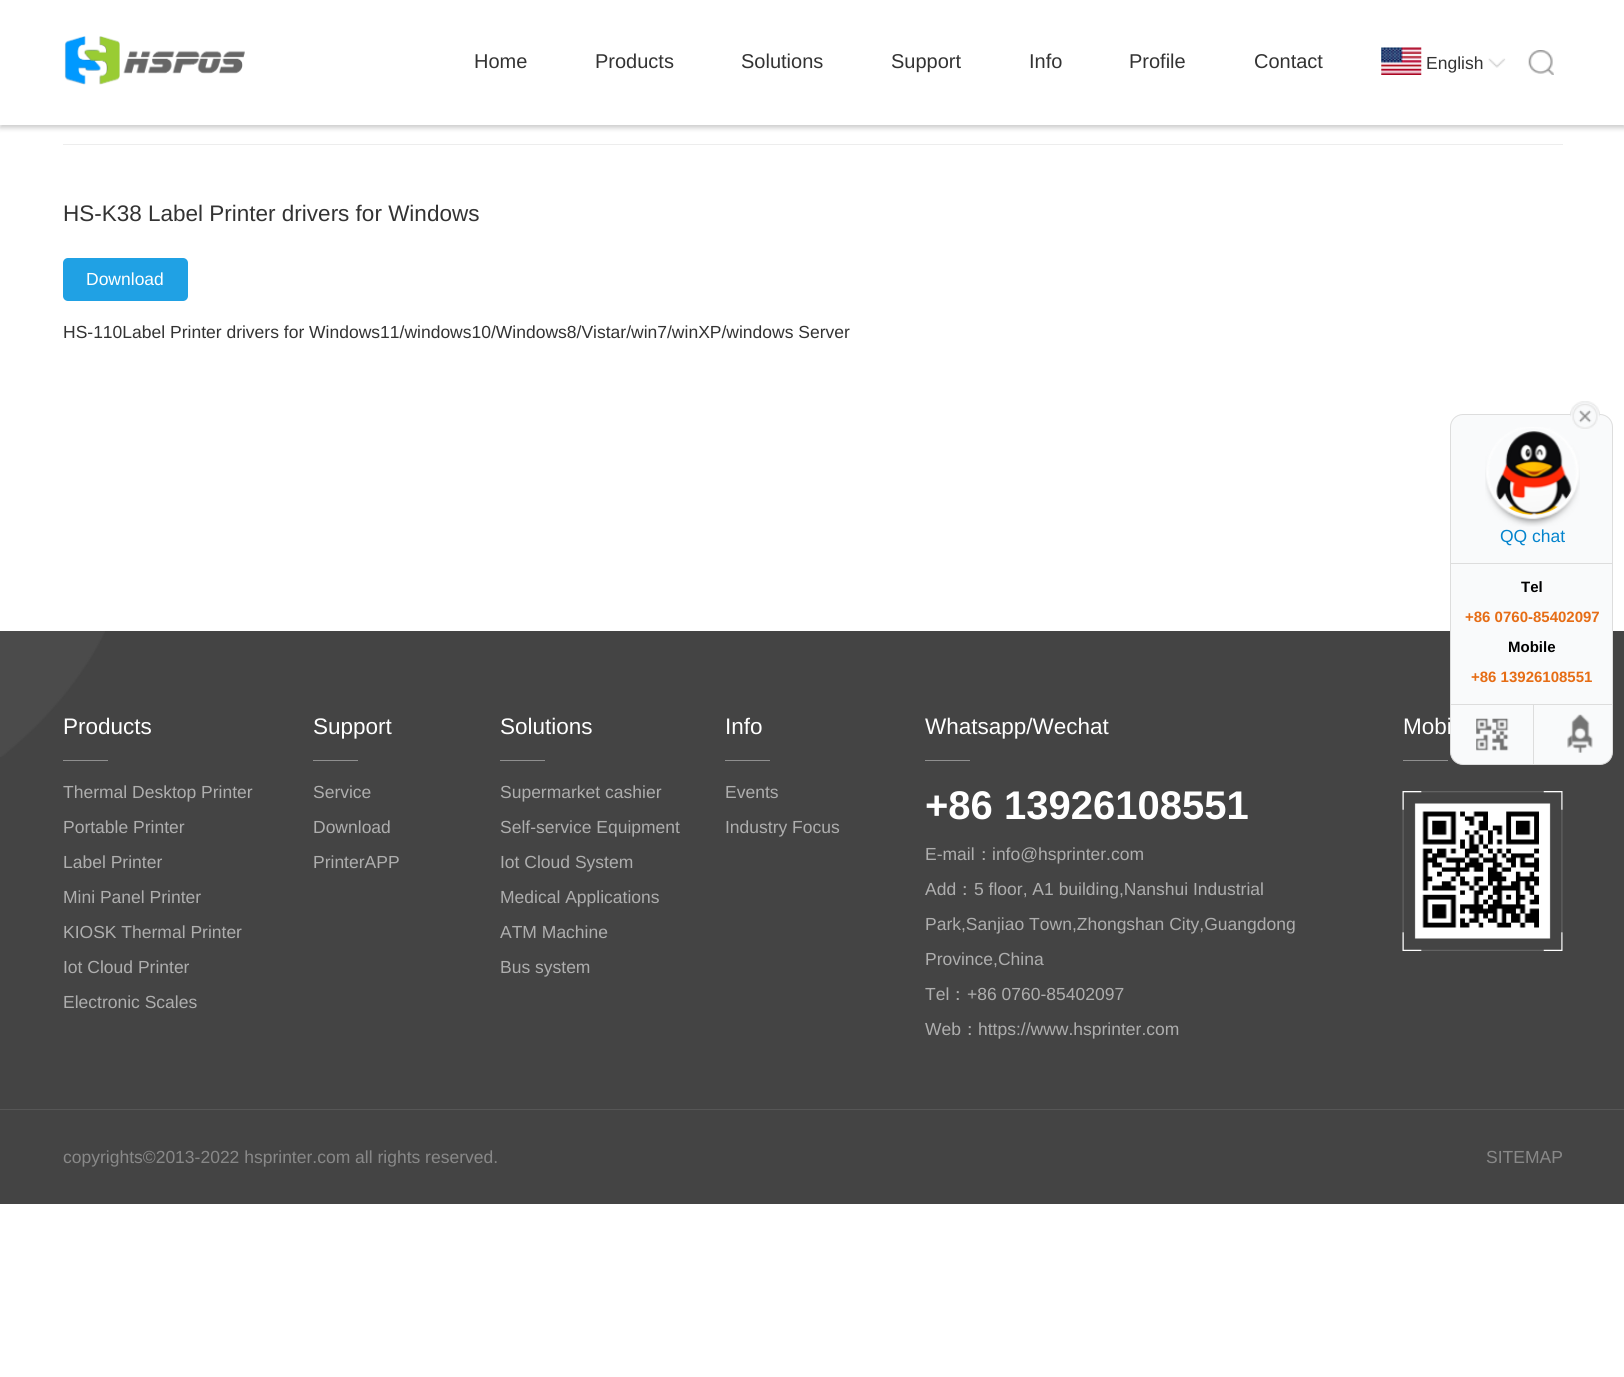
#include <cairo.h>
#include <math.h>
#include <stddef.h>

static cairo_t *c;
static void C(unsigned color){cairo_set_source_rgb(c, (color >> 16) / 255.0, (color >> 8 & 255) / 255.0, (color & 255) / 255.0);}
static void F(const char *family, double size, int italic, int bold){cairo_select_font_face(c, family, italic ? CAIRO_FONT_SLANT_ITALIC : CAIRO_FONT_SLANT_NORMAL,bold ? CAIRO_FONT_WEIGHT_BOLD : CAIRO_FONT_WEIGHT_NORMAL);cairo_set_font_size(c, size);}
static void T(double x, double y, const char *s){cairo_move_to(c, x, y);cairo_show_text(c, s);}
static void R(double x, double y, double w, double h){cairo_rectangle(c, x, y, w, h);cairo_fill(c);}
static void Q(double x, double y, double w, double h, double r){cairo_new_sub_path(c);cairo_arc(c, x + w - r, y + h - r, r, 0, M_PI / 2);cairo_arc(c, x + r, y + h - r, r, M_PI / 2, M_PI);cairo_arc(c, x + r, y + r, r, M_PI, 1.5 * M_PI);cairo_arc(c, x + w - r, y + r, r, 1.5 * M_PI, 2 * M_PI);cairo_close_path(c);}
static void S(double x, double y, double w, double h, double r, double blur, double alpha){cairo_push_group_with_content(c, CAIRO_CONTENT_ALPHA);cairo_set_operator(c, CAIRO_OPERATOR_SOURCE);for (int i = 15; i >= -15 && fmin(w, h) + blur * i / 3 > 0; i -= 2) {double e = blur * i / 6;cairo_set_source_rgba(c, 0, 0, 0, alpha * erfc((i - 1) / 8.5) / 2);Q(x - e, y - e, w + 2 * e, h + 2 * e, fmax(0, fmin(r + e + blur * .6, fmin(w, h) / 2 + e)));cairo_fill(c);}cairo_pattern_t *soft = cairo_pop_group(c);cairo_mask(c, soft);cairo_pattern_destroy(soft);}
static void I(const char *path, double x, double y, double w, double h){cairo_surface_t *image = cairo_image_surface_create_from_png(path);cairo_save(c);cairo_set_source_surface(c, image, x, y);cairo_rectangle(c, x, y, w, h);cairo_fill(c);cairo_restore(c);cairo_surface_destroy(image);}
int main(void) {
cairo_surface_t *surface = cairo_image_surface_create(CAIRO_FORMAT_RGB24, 1624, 1377);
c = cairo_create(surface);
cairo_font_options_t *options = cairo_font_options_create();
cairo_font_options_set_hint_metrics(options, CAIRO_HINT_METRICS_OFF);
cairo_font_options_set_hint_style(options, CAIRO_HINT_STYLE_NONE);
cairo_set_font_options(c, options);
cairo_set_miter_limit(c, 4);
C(0xffffff);
cairo_paint(c);
C(0x000000);
S(0,3,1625,125,0,2.5,.2);
C(0xffffff);
R(0,0,1624,125);
I("1.png",64,36,181,49);
F("Liberation Sans",20,0,0);
C(0x333333);
T(474,68,"Home");
T(595,68,"Products");
T(741,68,"Solutions");
T(891,68,"Support");
T(1029,68,"Info");
T(1129,68,"Profile");
T(1254,68,"Contact");
I("2.png",1381,47,41,28);
F("Liberation Sans",17.5,0,0);
T(1426,69,"English");
I("3.png",1488,58,18,10);
I("4.png",1528,50,26,25);
C(0xededed);
R(63,144,1500,1);
F("Liberation Sans",22.5,0,0);
C(0x333333);
T(63,221,"HS-K38 Label Printer drivers for Windows");
C(0x20a1e4);
Q(63,258,125,43,5);
cairo_fill(c);
F("Liberation Sans",17.5,0,0);
C(0xffffff);
T(86,285,"Download");
C(0x333333);
T(63,338,"HS-110Label Printer drivers for Windows11/windows10/Windows8/Vistar/win7/winXP/windows Server");
C(0x444444);
R(0,631,1624,573);
C(0xf9fafb);
Q(1450.5,414.5,162,350,12.5);
cairo_fill_preserve(c);
C(0xdddddd);
cairo_set_line_width(c,1);
cairo_stroke(c);
I("7.png",1496,431,76,84);
I("6.png",1485,427,95,100);
I("5.png",1570,401,30,28);
R(1451,563,162,1);
C(0x0484cd);
T(1500,542,"QQ chat");
C(0xdddddd);
R(1451,704,162,1);
F("Liberation Sans",15,0,1);
C(0x000000);
T(1521,592,"Tel");
C(0xe66d15);
T(1465,622,"+86 0760-85402097");
C(0x000000);
T(1508,652,"Mobile");
C(0xe66d15);
T(1471,682,"+86 13926108551");
I("8.png",1476,718,33,33);
C(0xdddddd);
R(1533,705,1,59);
I("9.png",1567,714,26,39);
I("10.png",0,631,105,126);
F("Liberation Sans",22.5,0,0);
C(0xffffff);
T(63,734,"Products");
C(0x8f8f8f);
R(63,760,45,1);
F("Liberation Sans",17.5,0,0);
C(0xaeaeae);
T(63,798,"Thermal Desktop Printer");
T(63,833,"Portable Printer");
T(63,868,"Label Printer");
T(63,903,"Mini Panel Printer");
T(63,938,"KIOSK Thermal Printer");
T(63,973,"Iot Cloud Printer");
T(63,1008,"Electronic Scales");
F("Liberation Sans",22.5,0,0);
C(0xffffff);
T(313,734,"Support");
C(0x8f8f8f);
R(313,760,45,1);
F("Liberation Sans",17.5,0,0);
C(0xaeaeae);
T(313,798,"Service");
T(313,833,"Download");
T(313,868,"PrinterAPP");
F("Liberation Sans",22.5,0,0);
C(0xffffff);
T(500,734,"Solutions");
C(0x8f8f8f);
R(500,760,45,1);
F("Liberation Sans",17.5,0,0);
C(0xaeaeae);
T(500,798,"Supermarket cashier");
T(500,833,"Self-service Equipment");
T(500,868,"Iot Cloud System");
T(500,903,"Medical Applications");
T(500,938,"ATM Machine");
T(500,973,"Bus system");
F("Liberation Sans",22.5,0,0);
C(0xffffff);
T(725,734,"Info");
C(0x8f8f8f);
R(725,760,45,1);
F("Liberation Sans",17.5,0,0);
C(0xaeaeae);
T(725,798,"Events");
T(725,833,"Industry Focus");
F("Liberation Sans",22.5,0,0);
C(0xffffff);
T(925,734,"Whatsapp/Wechat");
C(0x8f8f8f);
R(925,760,45,1);
F("Liberation Sans",40,0,1);
C(0xffffff);
T(925,819,"+86 13926108551");
F("Liberation Sans",17.5,0,0);
C(0xaeaeae);
T(925,860,"E-mail");
F("WenQuanYi Zen Hei Medium",17.5,0,0);
T(975,860,"：");
F("Liberation Sans",17.5,0,0);
T(992,860,"info@hsprinter.com");
T(925,895,"Add");
F("WenQuanYi Zen Hei Medium",17.5,0,0);
T(956,895,"：");
F("Liberation Sans",17.5,0,0);
T(974,895,"5 floor, A1 building,Nanshui Industrial");
T(925,930,"Park,Sanjiao Town,Zhongshan City,Guangdong");
T(925,965,"Province,China");
T(925,1000,"Tel");
F("WenQuanYi Zen Hei Medium",17.5,0,0);
T(949,1000,"：");
F("Liberation Sans",17.5,0,0);
T(967,1000,"+86 0760-85402097");
T(925,1035,"Web");
F("WenQuanYi Zen Hei Medium",17.5,0,0);
T(961,1035,"：");
F("Liberation Sans",17.5,0,0);
T(978,1035,"https://www.hsprinter.com");
I("11.png",1402,791,161,160);
F("Liberation Sans",22.5,0,0);
C(0xffffff);
T(1403,734,"Mobi");
C(0x8f8f8f);
R(1403,760,45,1);
I("12.png",1422,811,117,117);
C(0x565656);
R(0,1109,1624,1);
F("Liberation Sans",17.5,0,0);
C(0x888888);
T(63,1163,"copyrights©2013-2022 hsprinter.com all rights reserved.");
T(1486,1163,"SITEMAP");
cairo_surface_write_to_png(surface, "o.png");
cairo_font_options_destroy(options);
cairo_destroy(c);
cairo_surface_destroy(surface);
return 0;
}
